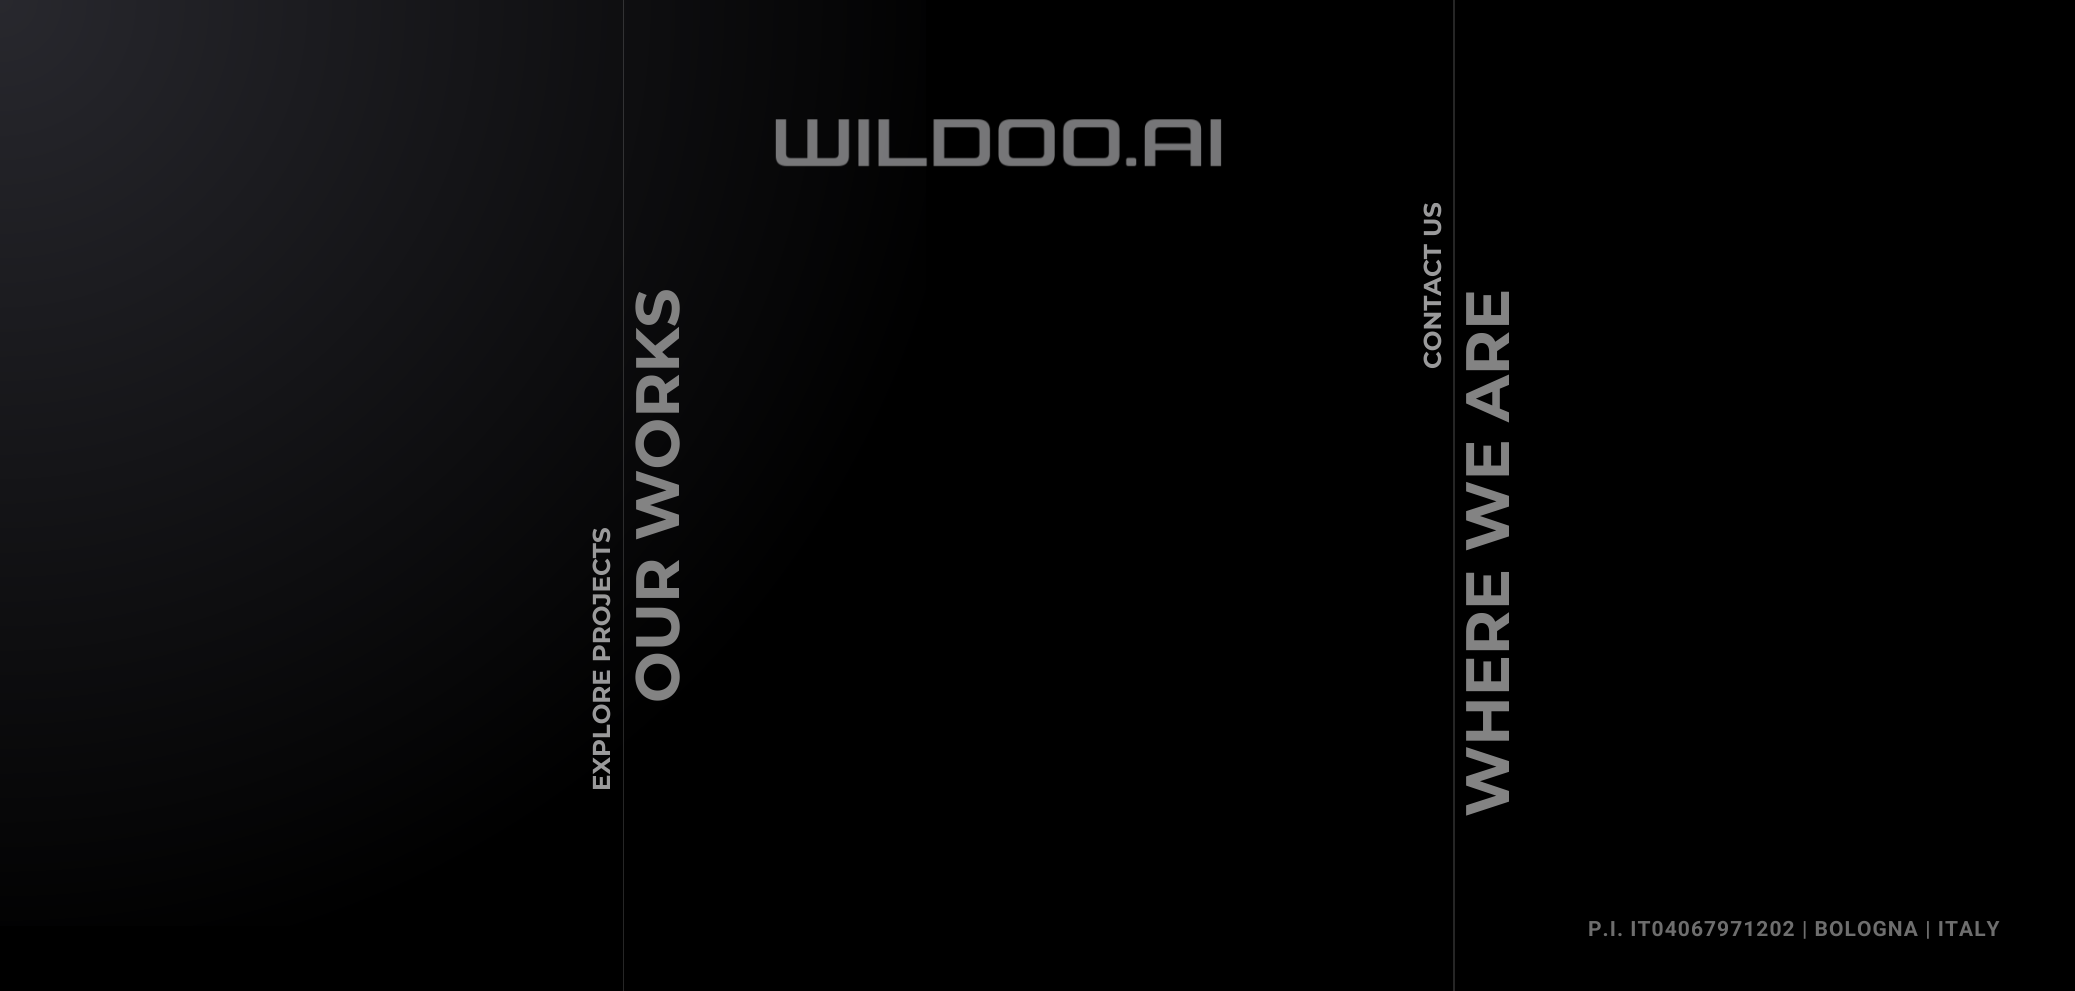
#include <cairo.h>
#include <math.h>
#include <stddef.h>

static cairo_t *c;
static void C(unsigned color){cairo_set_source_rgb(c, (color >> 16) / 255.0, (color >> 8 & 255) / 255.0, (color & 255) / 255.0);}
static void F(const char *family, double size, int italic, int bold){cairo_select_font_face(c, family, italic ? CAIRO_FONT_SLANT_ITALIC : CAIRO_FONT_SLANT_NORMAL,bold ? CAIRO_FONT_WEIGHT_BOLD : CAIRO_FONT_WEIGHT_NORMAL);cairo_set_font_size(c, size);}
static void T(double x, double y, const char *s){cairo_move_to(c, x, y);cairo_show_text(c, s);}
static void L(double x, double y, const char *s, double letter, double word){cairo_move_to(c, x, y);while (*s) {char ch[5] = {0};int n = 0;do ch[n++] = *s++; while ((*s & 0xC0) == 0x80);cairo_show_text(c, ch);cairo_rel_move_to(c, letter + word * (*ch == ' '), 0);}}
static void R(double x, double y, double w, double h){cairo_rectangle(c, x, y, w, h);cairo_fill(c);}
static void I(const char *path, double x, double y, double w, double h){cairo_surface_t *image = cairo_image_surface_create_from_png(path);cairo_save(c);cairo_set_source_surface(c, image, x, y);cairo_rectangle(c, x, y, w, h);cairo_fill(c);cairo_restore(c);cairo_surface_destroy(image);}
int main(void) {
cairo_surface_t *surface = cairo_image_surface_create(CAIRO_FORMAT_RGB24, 2075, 991);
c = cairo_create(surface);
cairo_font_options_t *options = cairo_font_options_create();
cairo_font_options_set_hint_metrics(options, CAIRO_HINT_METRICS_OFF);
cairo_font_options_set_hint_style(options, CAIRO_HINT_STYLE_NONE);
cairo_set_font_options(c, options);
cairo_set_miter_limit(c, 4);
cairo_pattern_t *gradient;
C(0x000000);
cairo_paint(c);
gradient = cairo_pattern_create_radial(0,0,0,0,0,1403);
cairo_pattern_add_color_stop_rgba(gradient,0,0.157,0.157,0.18,1);
cairo_pattern_add_color_stop_rgba(gradient,.7,0,0,0,1);
cairo_set_source(c,gradient);
cairo_pattern_destroy(gradient);
R(0,0,926,926);
gradient = cairo_pattern_create_radial(0,0,0,0,0,1403);
cairo_pattern_add_color_stop_rgba(gradient,0,0.282,0.282,0.302,1);
cairo_pattern_add_color_stop_rgba(gradient,.7,0.149,0.149,0.149,1);
cairo_set_source(c,gradient);
cairo_pattern_destroy(gradient);
R(623,0,1,991);
I("1.png",775,119,447,48);
F("Montserrat",24.5,0,1);
C(0x9a9a9b);
cairo_save(c);
cairo_translate(c,610,791);
cairo_rotate(c,-90 * M_PI / 180);
T(0,0,"EXPLORE PROJECTS");
cairo_restore(c);
F("Montserrat",61.25,0,1);
C(0x838383);
cairo_save(c);
cairo_translate(c,679,703);
cairo_rotate(c,-90 * M_PI / 180);
T(0,0,"OUR WORKS");
cairo_restore(c);
C(0x262626);
R(1453,0,2,991);
F("Montserrat",24.5,0,1);
C(0x9a9a9b);
cairo_save(c);
cairo_translate(c,1441,369);
cairo_rotate(c,-90 * M_PI / 180);
T(0,0,"CONTACT US");
cairo_restore(c);
F("Montserrat",61.25,0,1);
C(0x838383);
cairo_save(c);
cairo_translate(c,1509,817);
cairo_rotate(c,-90 * M_PI / 180);
T(0,0,"WHERE WE ARE");
cairo_restore(c);
F("Roboto",21,0,1);
C(0x6e6e6e);
L(1588,936,"P.I. IT04067971202 | BOLOGNA | ITALY",1.05,0);
cairo_surface_write_to_png(surface, "o.png");
cairo_font_options_destroy(options);
cairo_destroy(c);
cairo_surface_destroy(surface);
return 0;
}
